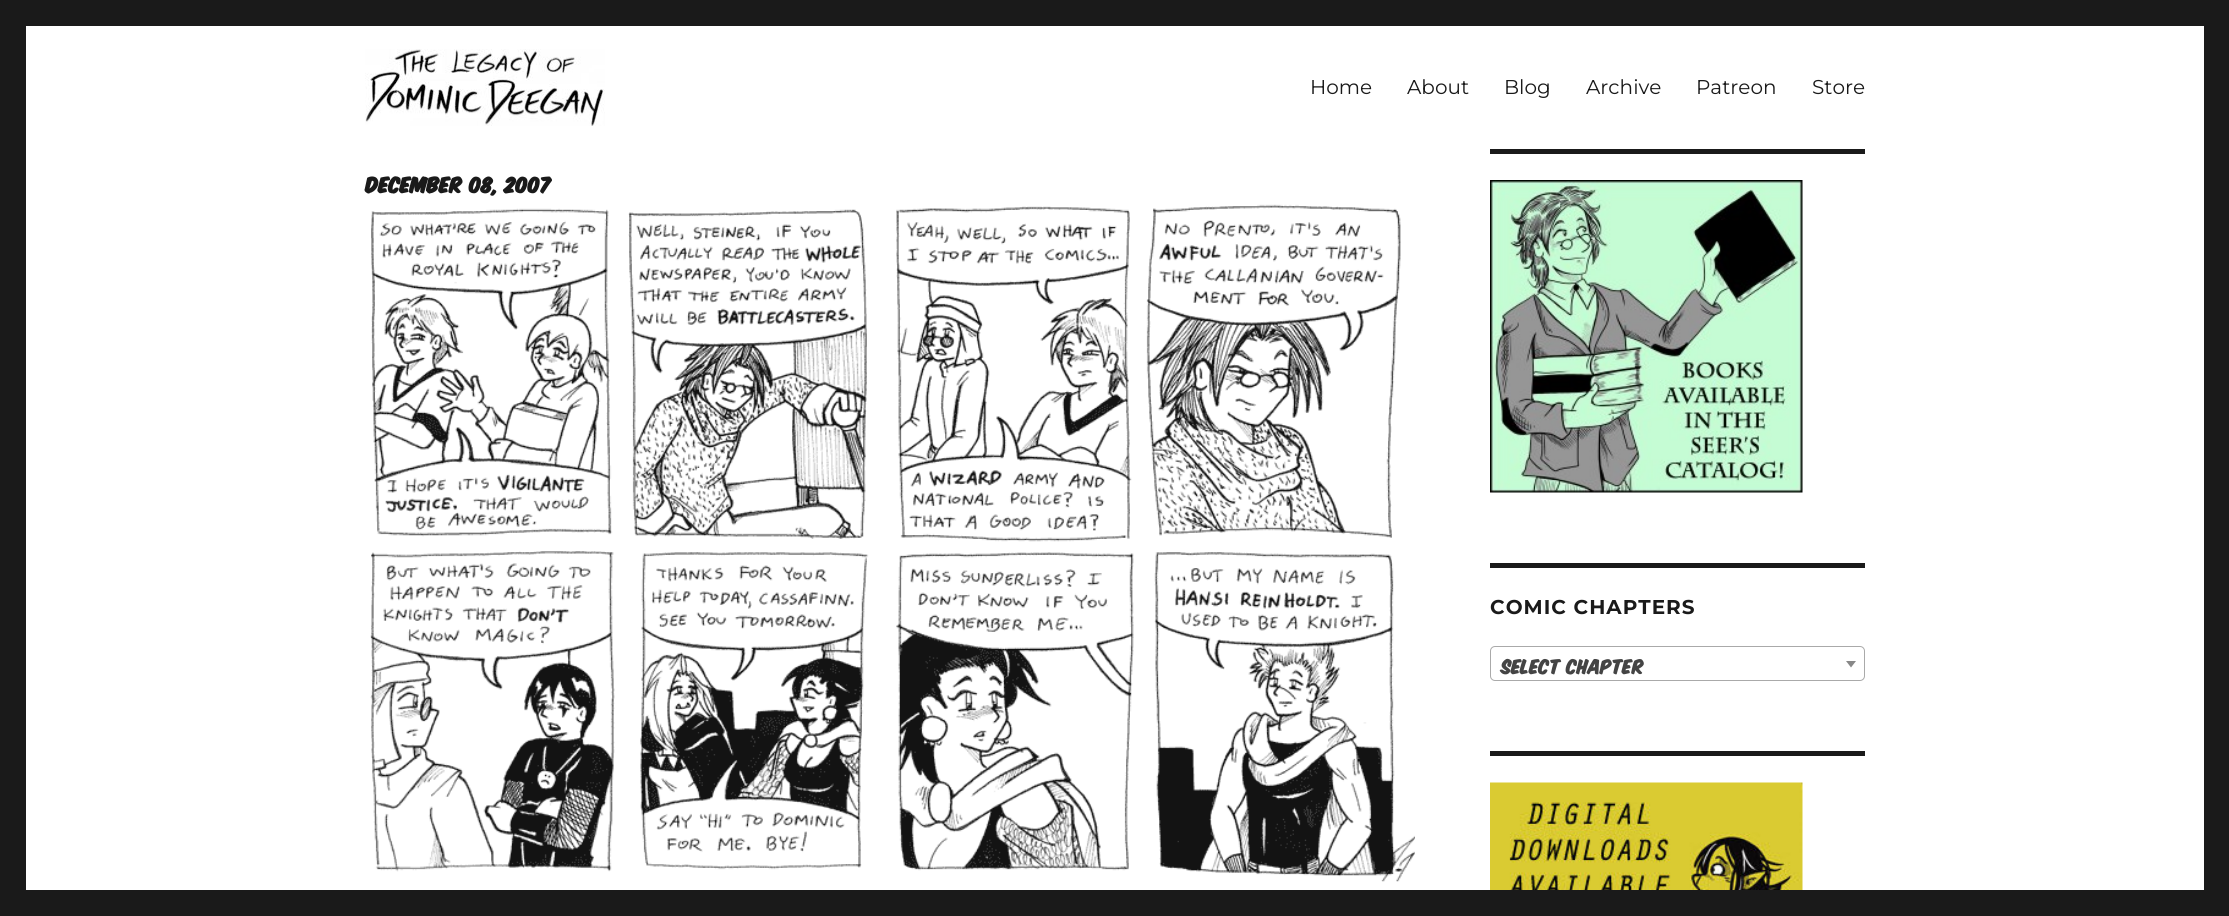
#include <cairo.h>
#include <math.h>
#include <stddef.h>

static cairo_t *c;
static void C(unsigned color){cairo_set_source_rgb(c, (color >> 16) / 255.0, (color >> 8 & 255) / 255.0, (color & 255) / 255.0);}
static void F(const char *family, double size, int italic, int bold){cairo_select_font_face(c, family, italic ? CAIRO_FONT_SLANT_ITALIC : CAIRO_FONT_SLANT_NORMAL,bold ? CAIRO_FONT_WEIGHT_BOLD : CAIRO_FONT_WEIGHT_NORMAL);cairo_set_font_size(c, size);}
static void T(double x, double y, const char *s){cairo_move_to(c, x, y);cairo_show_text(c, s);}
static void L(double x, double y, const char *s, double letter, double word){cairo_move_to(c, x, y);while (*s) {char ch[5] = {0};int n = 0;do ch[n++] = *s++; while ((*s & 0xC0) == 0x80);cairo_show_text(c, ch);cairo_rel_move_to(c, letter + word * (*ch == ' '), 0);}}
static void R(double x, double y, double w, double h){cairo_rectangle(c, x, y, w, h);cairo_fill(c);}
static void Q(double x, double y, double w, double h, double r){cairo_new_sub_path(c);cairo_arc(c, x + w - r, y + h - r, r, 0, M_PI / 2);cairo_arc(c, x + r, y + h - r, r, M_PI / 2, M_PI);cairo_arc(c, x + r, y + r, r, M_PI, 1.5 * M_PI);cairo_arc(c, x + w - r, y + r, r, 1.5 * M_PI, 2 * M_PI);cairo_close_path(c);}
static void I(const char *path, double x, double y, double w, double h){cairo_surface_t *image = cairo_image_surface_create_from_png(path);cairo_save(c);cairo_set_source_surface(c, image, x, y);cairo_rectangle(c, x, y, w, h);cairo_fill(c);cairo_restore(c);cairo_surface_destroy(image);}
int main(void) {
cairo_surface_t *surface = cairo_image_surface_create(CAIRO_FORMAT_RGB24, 2229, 916);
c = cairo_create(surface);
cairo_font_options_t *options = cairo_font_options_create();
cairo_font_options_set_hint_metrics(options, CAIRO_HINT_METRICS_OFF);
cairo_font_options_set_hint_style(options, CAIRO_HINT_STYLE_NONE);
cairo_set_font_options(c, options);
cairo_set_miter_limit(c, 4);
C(0x1a1a1a);
cairo_paint(c);
C(0xffffff);
R(26,26,2178,864);
I("1.png",365,49,240,77);
F("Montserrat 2 Thin",20,0,0);
C(0x1a1a1a);
T(1310,94,"Home");
T(1407,94,"About");
T(1504,94,"Blog");
T(1586,94,"Archive");
T(1696,94,"Patreon");
T(1812,94,"Store");
F("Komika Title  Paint",17.5,0,1);
T(365,193,"December 08, 2007");
I("2.png",370,204,1045,678);
R(1490,149,375,5);
I("3.png",1490,180,313,313);
R(1490,563,375,5);
F("Montserrat Thin",20,0,0);
L(1490,614,"COMIC CHAPTERS",1,0);
Q(1490.5,646.5,374,34,4.5);
C(0xaaaaaa);
cairo_set_line_width(c,1);
cairo_stroke(c);
F("Komika Title  Paint",16.25,0,0);
C(0x444444);
T(1501,674,"Select Chapter");
C(0x888888);
cairo_new_path(c);
cairo_move_to(c,1846,661);
cairo_line_to(c,1856,661);
cairo_line_to(c,1851,667.5);
cairo_close_path(c);
cairo_fill(c);
C(0x1a1a1a);
R(1490,751,375,5);
I("4.png",1490,782,313,108);
cairo_surface_write_to_png(surface, "o.png");
cairo_font_options_destroy(options);
cairo_destroy(c);
cairo_surface_destroy(surface);
return 0;
}
